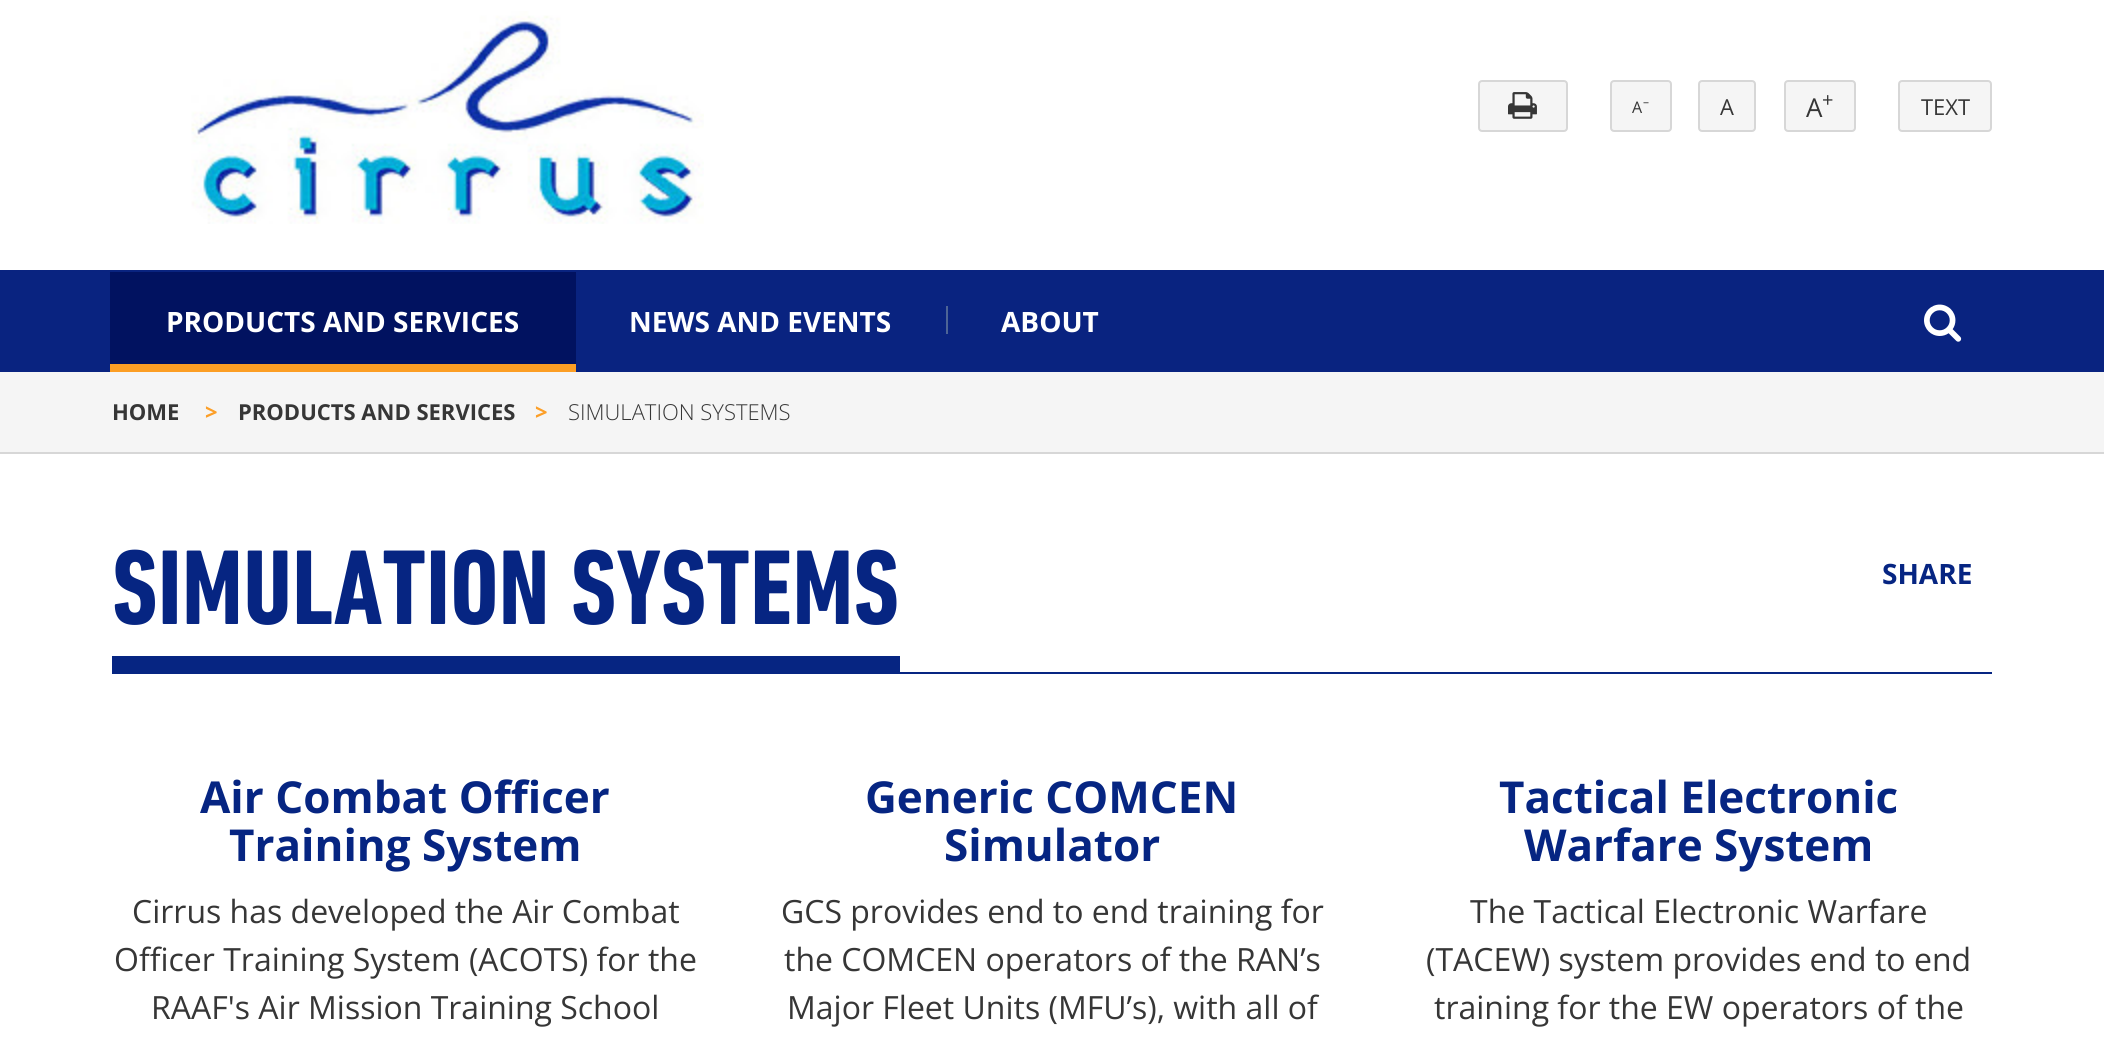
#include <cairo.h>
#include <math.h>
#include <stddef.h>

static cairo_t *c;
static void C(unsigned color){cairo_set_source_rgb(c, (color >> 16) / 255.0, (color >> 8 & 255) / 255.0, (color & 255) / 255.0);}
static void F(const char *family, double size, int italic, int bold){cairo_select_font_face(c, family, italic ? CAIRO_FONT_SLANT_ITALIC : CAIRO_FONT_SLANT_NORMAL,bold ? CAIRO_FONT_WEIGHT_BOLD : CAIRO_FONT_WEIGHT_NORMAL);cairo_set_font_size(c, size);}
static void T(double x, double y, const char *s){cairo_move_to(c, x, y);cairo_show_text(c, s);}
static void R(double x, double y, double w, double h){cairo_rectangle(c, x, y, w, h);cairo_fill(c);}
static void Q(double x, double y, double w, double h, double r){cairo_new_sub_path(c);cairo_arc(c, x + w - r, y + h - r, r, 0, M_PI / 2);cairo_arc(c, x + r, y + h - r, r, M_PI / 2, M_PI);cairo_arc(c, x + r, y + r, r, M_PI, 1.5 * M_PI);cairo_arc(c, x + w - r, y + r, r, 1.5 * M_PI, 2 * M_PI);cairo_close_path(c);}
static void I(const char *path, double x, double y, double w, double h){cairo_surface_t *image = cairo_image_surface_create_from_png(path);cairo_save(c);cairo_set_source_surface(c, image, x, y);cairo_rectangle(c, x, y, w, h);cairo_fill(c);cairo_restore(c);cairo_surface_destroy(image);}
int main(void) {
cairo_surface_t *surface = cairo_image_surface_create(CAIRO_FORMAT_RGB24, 2104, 1049);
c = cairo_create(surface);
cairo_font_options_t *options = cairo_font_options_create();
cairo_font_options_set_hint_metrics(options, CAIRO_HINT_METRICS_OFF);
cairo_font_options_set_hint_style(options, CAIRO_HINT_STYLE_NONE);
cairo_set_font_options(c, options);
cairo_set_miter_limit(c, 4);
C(0xffffff);
cairo_paint(c);
I("1.png",191,11,513,213);
C(0xf5f5f5);
Q(1479,81,88,50,3);
cairo_fill_preserve(c);
C(0xd7d7d7);
cairo_stroke(c);
I("2.png",1508,92,29,27);
C(0xf5f5f5);
Q(1611,81,60,50,3);
cairo_fill_preserve(c);
C(0xd7d7d7);
cairo_stroke(c);
F("Open Sans",16,0,0);
C(0x363636);
T(1632,113,"A");
F("Open Sans",12,0,0);
T(1643,106,"–");
C(0xf5f5f5);
Q(1699,81,56,50,3);
cairo_fill_preserve(c);
C(0xd7d7d7);
cairo_stroke(c);
F("Open Sans",22,0,0);
C(0x363636);
T(1720,115,"A");
C(0xf5f5f5);
Q(1785,81,70,50,3);
cairo_fill_preserve(c);
C(0xd7d7d7);
cairo_stroke(c);
F("Open Sans",26,0,0);
C(0x363636);
T(1806,117,"A");
F("Open Sans",20,0,0);
T(1822,107,"+");
C(0xf5f5f5);
Q(1899,81,92,50,3);
cairo_fill_preserve(c);
C(0xd7d7d7);
cairo_stroke(c);
F("Open Sans",22,0,0);
C(0x363636);
T(1921,115,"TEXT");
C(0x092380);
R(0,270,2104,102);
C(0x011260);
R(110,272,466,92);
F("Open Sans",28,0,1);
C(0xffffff);
T(166,332,"PRODUCTS AND SERVICES");
C(0xfc9e24);
R(110,364,466,8);
C(0xffffff);
T(629,332,"NEWS AND EVENTS");
C(0x4d6496);
R(946,306,2,28);
C(0xffffff);
T(1001,332,"ABOUT");
I("3.png",1924,304,38,38);
C(0xf5f5f5);
R(0,372,2104,80);
C(0xd7d7d7);
R(0,452,2104,2);
F("Open Sans",22,0,1);
C(0x363636);
T(112,420,"HOME");
C(0xfc9f28);
T(205,420,">");
C(0x363636);
T(238,420,"PRODUCTS AND SERVICES");
C(0xfc9f28);
T(535,420,">");
F("Open Sans Light",22,0,0);
C(0x363636);
T(568,420,"SIMULATION SYSTEMS");
C(0x062582);
R(112,672,1880,2);
R(112,656,788,16);
F("DIN Next",108,0,1);
T(112,624,"SIMULATION SYSTEMS");
F("Open Sans",28,0,1);
T(1882,584,"SHARE");
F("Open Sans",44,0,1);
T(200,813,"Air Combat Officer");
T(229,861,"Training System");
F("Open Sans",32,0,0);
C(0x363636);
T(132,923,"Cirrus has developed the Air Combat");
T(114,971,"Officer Training System (ACOTS) for the");
T(151,1019,"RAAF's Air Mission Training School");
F("Open Sans",44,0,1);
C(0x062582);
T(865,813,"Generic COMCEN");
T(944,861,"Simulator");
F("Open Sans",32,0,0);
C(0x363636);
T(781,923,"GCS provides end to end training for");
T(784,971,"the COMCEN operators of the RAN’s");
T(787,1019,"Major Fleet Units (MFU’s), with all of");
F("Open Sans",44,0,1);
C(0x062582);
T(1499,813,"Tactical Electronic");
T(1524,861,"Warfare System");
F("Open Sans",32,0,0);
C(0x363636);
T(1470,923,"The Tactical Electronic Warfare");
T(1426,971,"(TACEW) system provides end to end");
T(1434,1019,"training for the EW operators of the");
cairo_surface_write_to_png(surface, "o.png");
cairo_font_options_destroy(options);
cairo_destroy(c);
cairo_surface_destroy(surface);
return 0;
}
